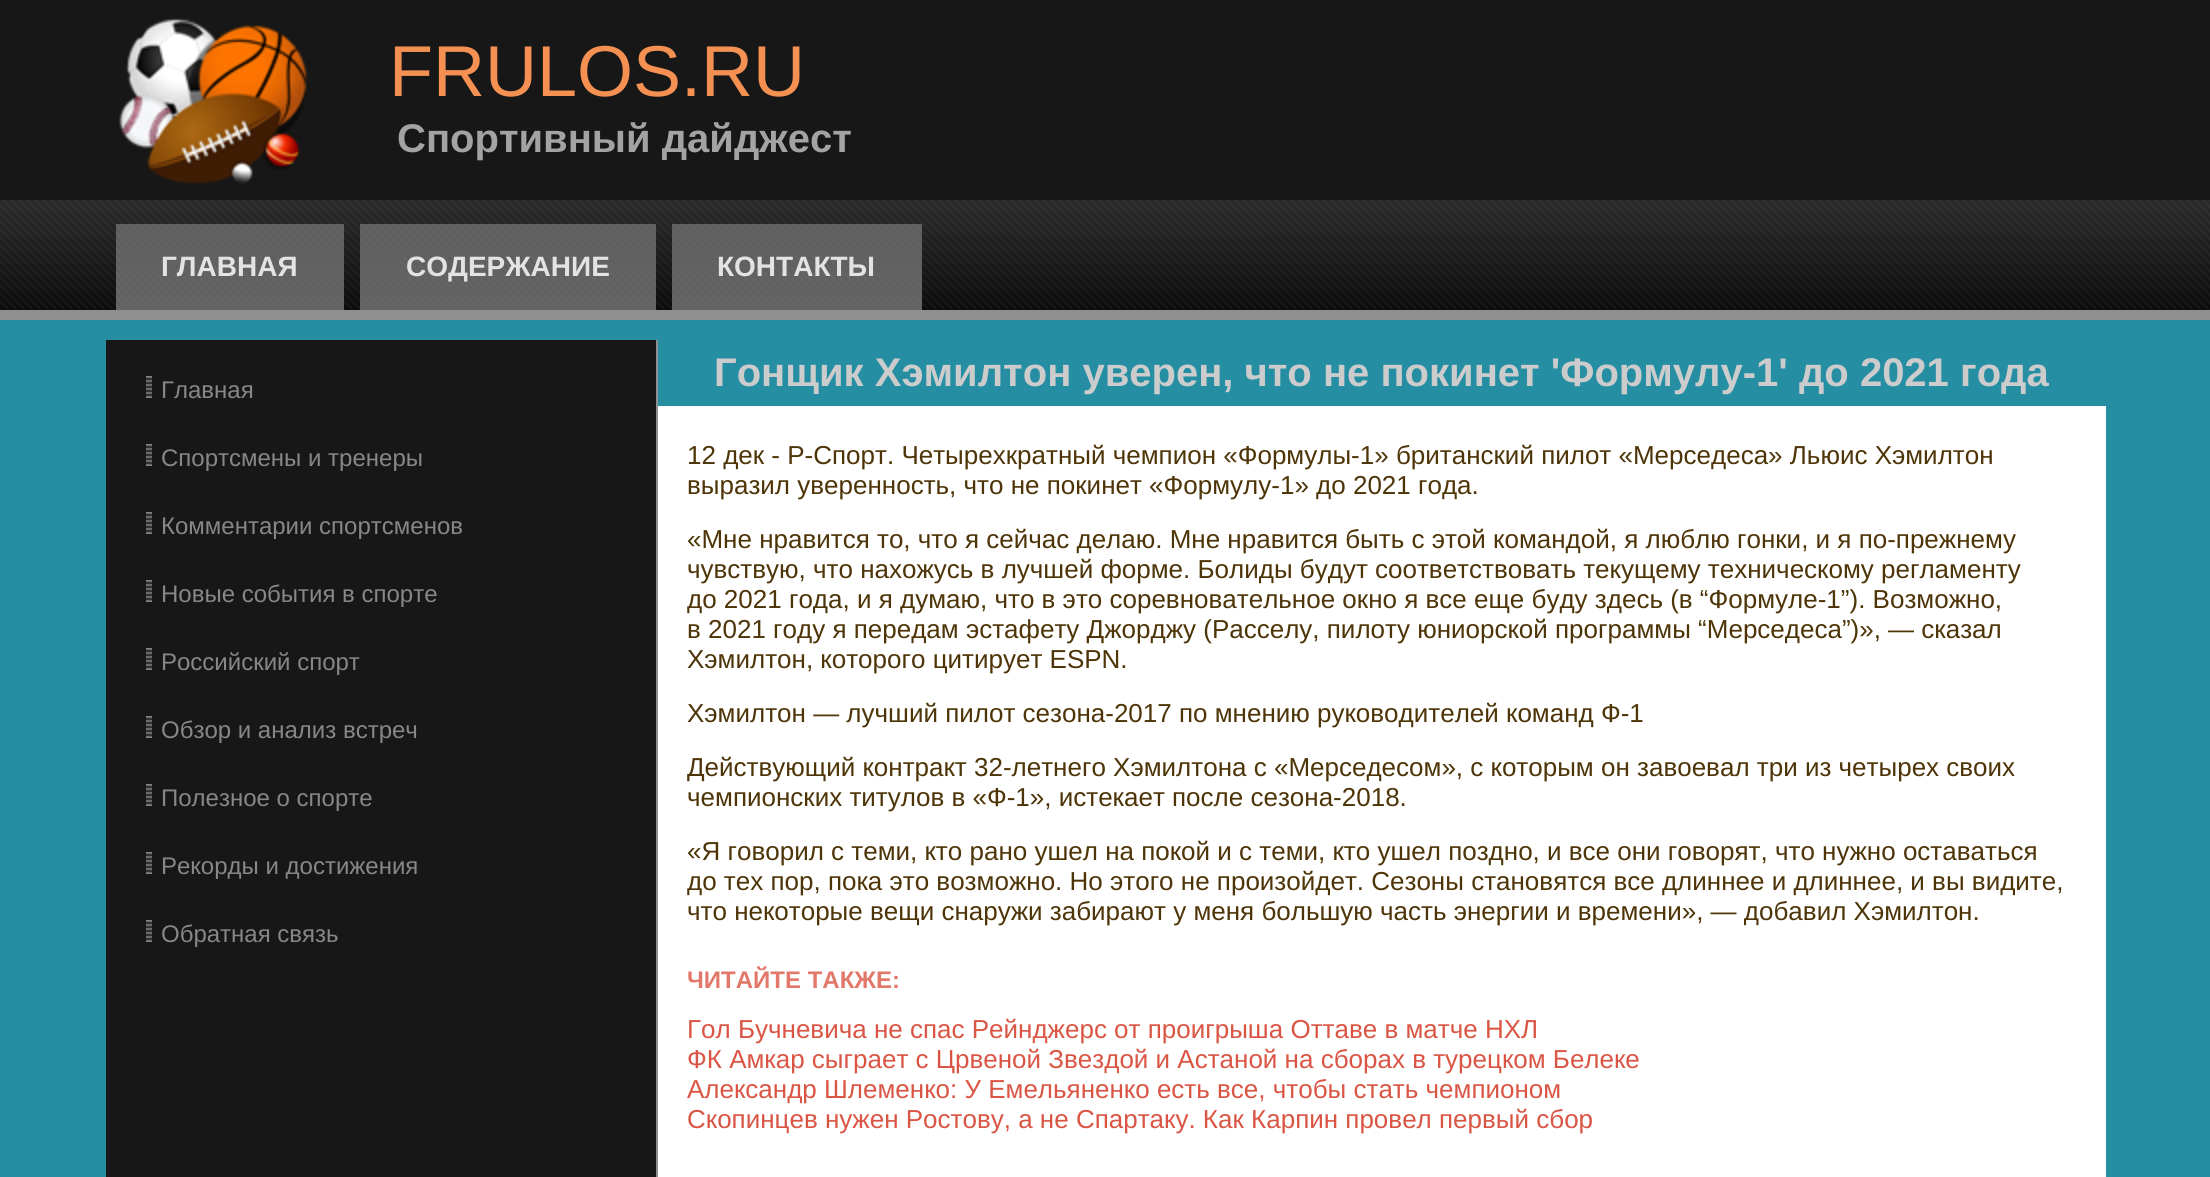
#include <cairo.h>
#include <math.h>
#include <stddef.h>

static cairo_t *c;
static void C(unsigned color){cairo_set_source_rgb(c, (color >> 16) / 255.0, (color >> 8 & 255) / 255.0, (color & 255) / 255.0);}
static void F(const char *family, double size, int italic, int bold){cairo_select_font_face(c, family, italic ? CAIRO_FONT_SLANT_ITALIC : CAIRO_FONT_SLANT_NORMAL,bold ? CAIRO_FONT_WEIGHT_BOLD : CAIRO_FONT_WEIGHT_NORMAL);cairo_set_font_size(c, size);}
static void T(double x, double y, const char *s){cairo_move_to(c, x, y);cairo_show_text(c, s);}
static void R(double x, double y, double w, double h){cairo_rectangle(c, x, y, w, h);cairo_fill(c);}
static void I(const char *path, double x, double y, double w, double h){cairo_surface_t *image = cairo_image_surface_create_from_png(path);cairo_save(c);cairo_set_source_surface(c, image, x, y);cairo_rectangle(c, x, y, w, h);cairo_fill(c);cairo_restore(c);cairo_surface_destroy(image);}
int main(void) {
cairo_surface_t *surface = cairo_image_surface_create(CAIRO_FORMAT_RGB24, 2210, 1177);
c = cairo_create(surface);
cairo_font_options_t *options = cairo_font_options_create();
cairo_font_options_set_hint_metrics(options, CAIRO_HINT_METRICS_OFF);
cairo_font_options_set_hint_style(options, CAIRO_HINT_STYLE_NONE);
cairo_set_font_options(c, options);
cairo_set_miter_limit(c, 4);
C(0x258ea3);
cairo_paint(c);
C(0x171717);
R(0,0,2210,200);
I("1.png",119,18,190,167);
F("Liberation Sans",72,0,0);
C(0xf49052);
T(389,96,"FRULOS.RU");
F("Liberation Sans",40,0,1);
C(0xa3a3a3);
T(397,152,"Спортивный дайджест");
I("2.png",0,200,2210,110);
C(0x8f8f8f);
R(0,310,2210,10);
F("Liberation Sans",28,0,1);
C(0xe3e3e3);
T(161,276,"ГЛАВНАЯ");
T(406,276,"СОДЕРЖАНИЕ");
T(717,276,"КОНТАКТЫ");
C(0x171717);
R(106,340,550,837);
C(0x8f8f8f);
R(656,340,2,837);
I("3.png",146,376,6,22);
F("Liberation Sans",24,0,0);
C(0x878787);
T(161,398,"Главная");
I("3.png",146,444,6,22);
T(161,466,"Спортсмены и тренеры");
I("3.png",146,512,6,22);
T(161,534,"Комментарии спортсменов");
I("3.png",146,580,6,22);
T(161,602,"Новые события в спорте");
I("3.png",146,648,6,22);
T(161,670,"Российский спорт");
I("3.png",146,716,6,22);
T(161,738,"Обзор и анализ встреч");
I("3.png",146,784,6,22);
T(161,806,"Полезное о спорте");
I("3.png",146,852,6,22);
T(161,874,"Рекорды и достижения");
I("3.png",146,920,6,22);
T(161,942,"Обратная связь");
F("Liberation Sans",40,0,1);
C(0xcccccc);
T(714,386,"Гонщик Хэмилтон уверен, что не покинет 'Формулу-1' до 2021 года");
C(0xffffff);
R(658,406,1448,771);
F("Liberation Sans",26,0,0);
C(0x4e3508);
T(687,464,"12 дек - Р-Спорт. Четырехкратный чемпион «Формулы-1» британский пилот «Мерседеса» Льюис Хэмилтон");
T(687,494,"выразил уверенность, что не покинет «Формулу-1» до 2021 года.");
T(687,548,"«Мне нравится то, что я сейчас делаю. Мне нравится быть с этой командой, я люблю гонки, и я по-прежнему");
T(687,578,"чувствую, что нахожусь в лучшей форме. Болиды будут соответствовать текущему техническому регламенту");
T(687,608,"до 2021 года, и я думаю, что в это соревновательное окно я все еще буду здесь (в “Формуле-1”). Возможно,");
T(687,638,"в 2021 году я передам эстафету Джорджу (Расселу, пилоту юниорской программы “Мерседеса”)», — сказал");
T(687,668,"Хэмилтон, которого цитирует ESPN.");
T(687,722,"Хэмилтон — лучший пилот сезона-2017 по мнению руководителей команд Ф-1");
T(687,776,"Действующий контракт 32-летнего Хэмилтона с «Мерседесом», с которым он завоевал три из четырех своих");
T(687,806,"чемпионских титулов в «Ф-1», истекает после сезона-2018.");
T(687,860,"«Я говорил с теми, кто рано ушел на покой и с теми, кто ушел поздно, и все они говорят, что нужно оставаться");
T(687,890,"до тех пор, пока это возможно. Но этого не произойдет. Сезоны становятся все длиннее и длиннее, и вы видите,");
T(687,920,"что некоторые вещи снаружи забирают у меня большую часть энергии и времени», — добавил Хэмилтон.");
F("Liberation Sans",24,0,1);
C(0xe2786a);
T(687,988,"ЧИТАЙТЕ ТАКЖЕ:");
F("Liberation Sans",26,0,0);
C(0xda5544);
T(687,1038,"Гол Бучневича не спас Рейнджерс от проигрыша Оттаве в матче НХЛ");
T(687,1068,"ФК Амкар сыграет с Црвеной Звездой и Астаной на сборах в турецком Белеке");
T(687,1098,"Александр Шлеменко: У Емельяненко есть все, чтобы стать чемпионом");
T(687,1128,"Скопинцев нужен Ростову, а не Спартаку. Как Карпин провел первый сбор");
cairo_surface_write_to_png(surface, "o.png");
cairo_font_options_destroy(options);
cairo_destroy(c);
cairo_surface_destroy(surface);
return 0;
}
